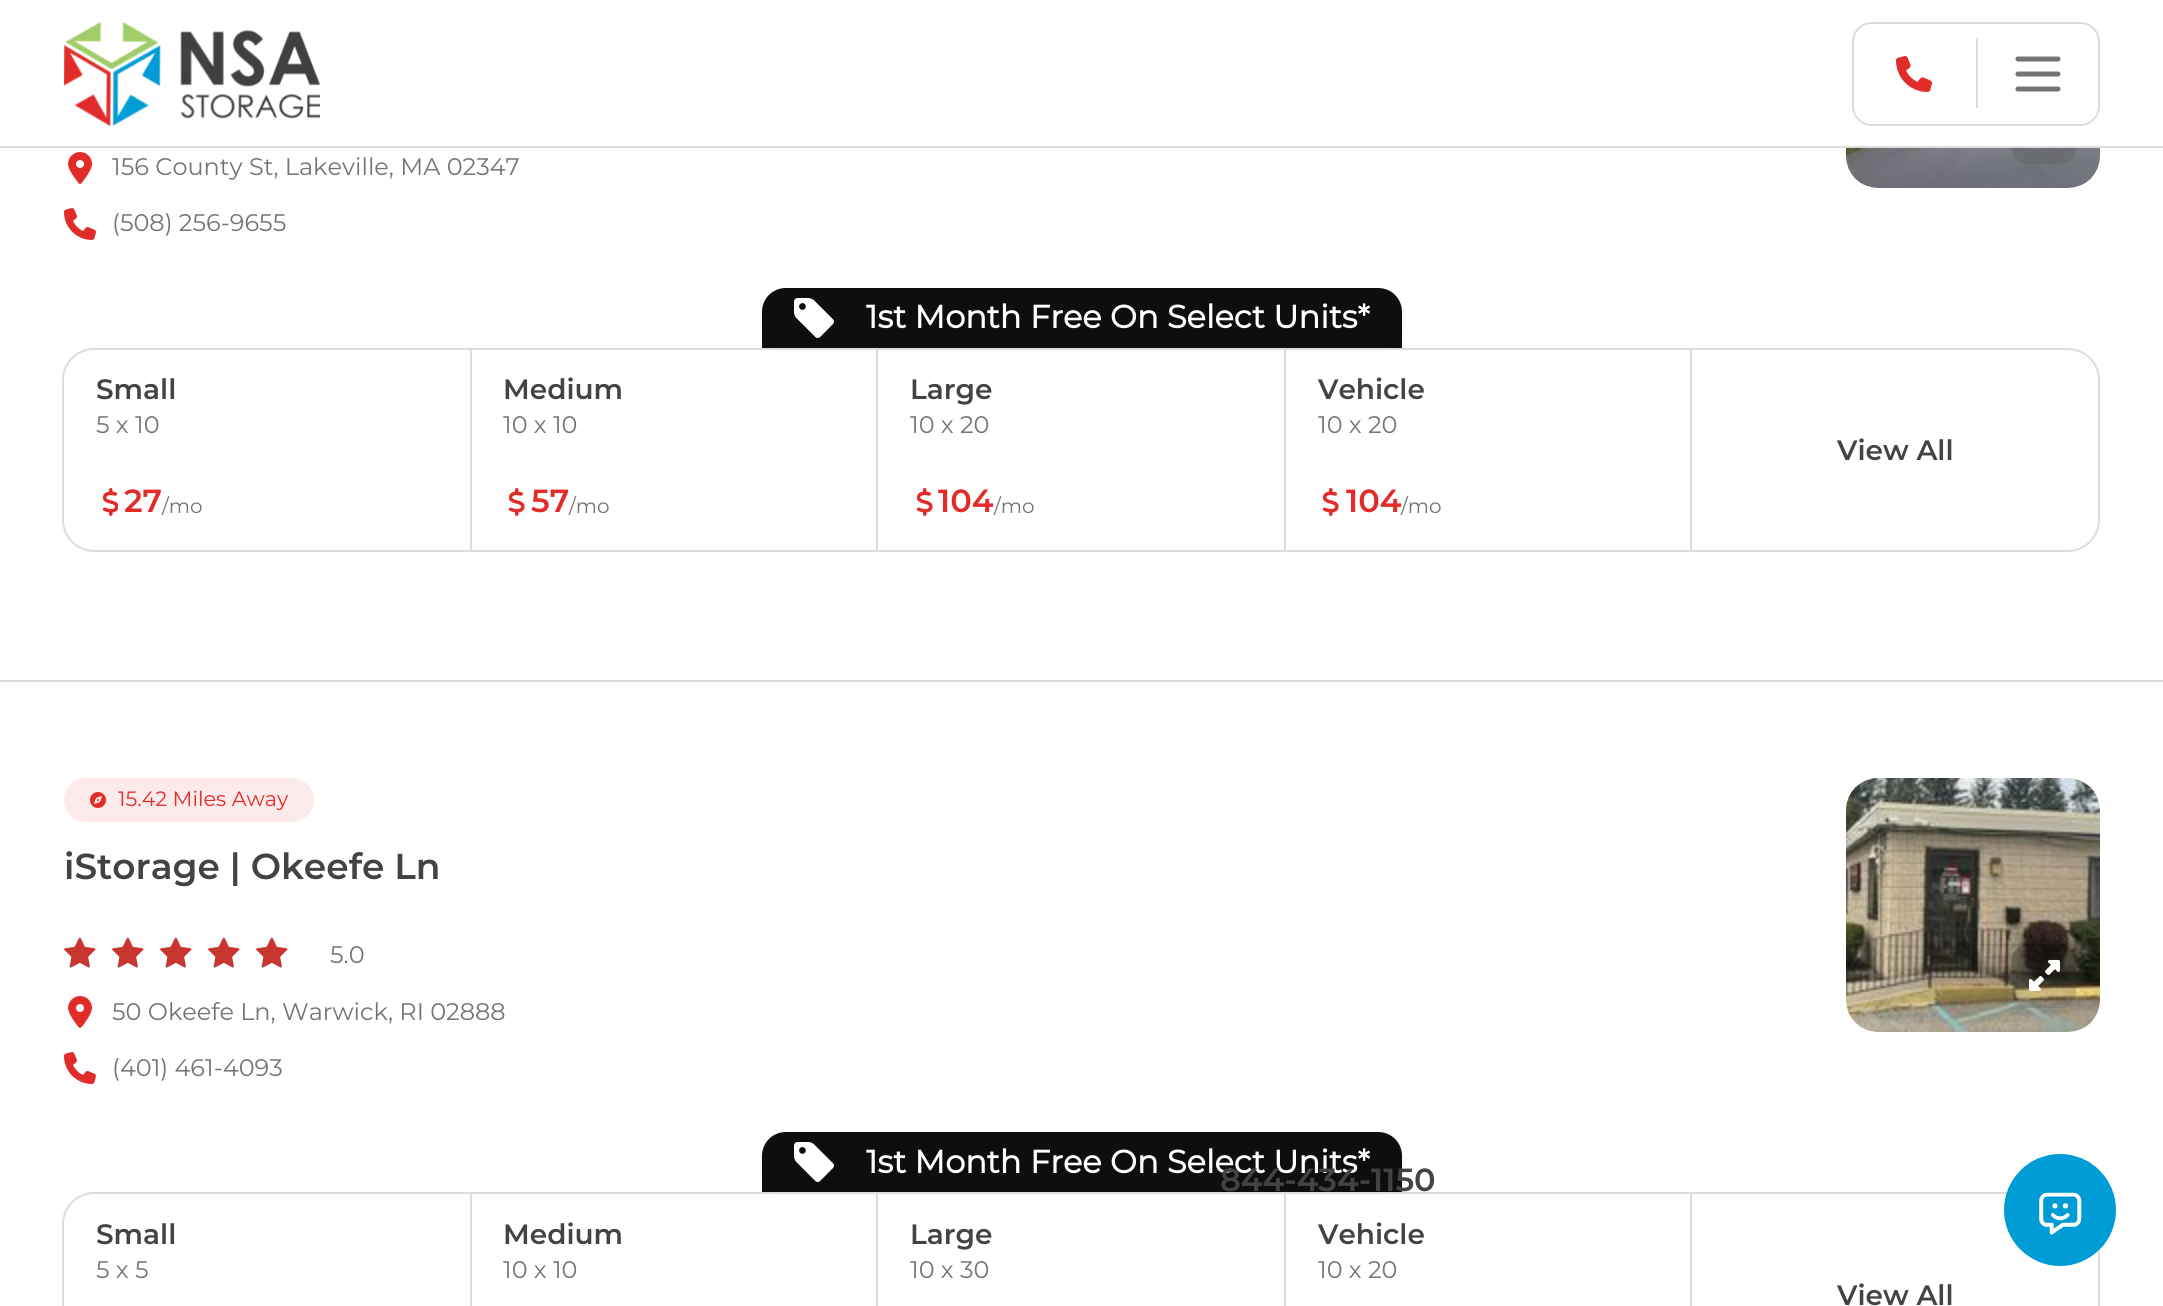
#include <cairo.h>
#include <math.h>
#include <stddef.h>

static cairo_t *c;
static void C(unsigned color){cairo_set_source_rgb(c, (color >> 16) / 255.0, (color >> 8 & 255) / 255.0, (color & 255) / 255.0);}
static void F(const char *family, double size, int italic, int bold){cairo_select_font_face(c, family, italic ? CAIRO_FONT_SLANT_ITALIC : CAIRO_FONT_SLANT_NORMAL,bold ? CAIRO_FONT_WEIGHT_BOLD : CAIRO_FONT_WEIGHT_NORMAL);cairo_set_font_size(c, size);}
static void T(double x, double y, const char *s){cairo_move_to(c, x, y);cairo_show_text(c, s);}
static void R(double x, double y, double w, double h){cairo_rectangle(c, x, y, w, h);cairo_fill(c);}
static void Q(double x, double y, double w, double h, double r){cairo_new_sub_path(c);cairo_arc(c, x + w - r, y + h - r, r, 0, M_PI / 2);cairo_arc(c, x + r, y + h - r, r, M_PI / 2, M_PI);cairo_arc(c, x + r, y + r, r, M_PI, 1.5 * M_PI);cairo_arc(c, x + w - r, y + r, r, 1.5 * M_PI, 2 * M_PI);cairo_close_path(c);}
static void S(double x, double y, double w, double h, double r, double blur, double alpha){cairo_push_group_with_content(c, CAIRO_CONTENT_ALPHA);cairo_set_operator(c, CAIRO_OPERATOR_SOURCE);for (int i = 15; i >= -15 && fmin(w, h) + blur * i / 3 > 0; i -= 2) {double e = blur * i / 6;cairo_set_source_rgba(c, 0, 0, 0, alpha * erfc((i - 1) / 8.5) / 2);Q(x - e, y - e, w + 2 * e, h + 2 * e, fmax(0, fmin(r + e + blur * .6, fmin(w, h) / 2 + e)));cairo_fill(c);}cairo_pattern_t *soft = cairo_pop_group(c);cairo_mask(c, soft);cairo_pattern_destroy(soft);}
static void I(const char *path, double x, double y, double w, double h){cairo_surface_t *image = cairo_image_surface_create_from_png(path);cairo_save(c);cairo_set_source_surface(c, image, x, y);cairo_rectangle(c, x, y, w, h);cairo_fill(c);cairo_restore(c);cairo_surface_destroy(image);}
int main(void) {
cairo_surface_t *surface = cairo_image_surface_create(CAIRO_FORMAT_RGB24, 2163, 1306);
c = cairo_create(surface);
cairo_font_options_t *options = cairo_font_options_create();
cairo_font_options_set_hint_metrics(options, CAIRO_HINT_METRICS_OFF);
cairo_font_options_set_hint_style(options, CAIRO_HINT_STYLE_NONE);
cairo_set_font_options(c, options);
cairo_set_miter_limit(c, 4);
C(0xffffff);
cairo_paint(c);
C(0xdfdcdd);
R(0,680,2163,2);
I("1.png",68,152,24,32);
F("Montserrat",24,0,0);
C(0x767374);
T(112,175,"156 County St, Lakeville, MA 02347");
I("2.png",64,208,32,32);
T(112,231,"(508) 256-9655");
I("3.png",1846,148,254,40);
C(0x000000);
S(762,290,640,60,24,3,.05);
C(0x0e0e0e);
cairo_new_path(c);
cairo_move_to(c,786,288);
cairo_line_to(c,1378,288);
cairo_curve_to(c,1391.5,288,1402,298.5,1402,312);
cairo_line_to(c,1402,348);
cairo_line_to(c,762,348);
cairo_line_to(c,762,312);
cairo_curve_to(c,762,298.5,772.5,288,786,288);
cairo_close_path(c);
cairo_fill(c);
I("4.png",794,298,40,40);
I("5.png",794,298,40,40);
F("Montserrat",32,0,1);
C(0xffffff);
T(866,328,"1st Month Free On Select Units*");
cairo_new_path(c);
cairo_move_to(c,94,349);
cairo_line_to(c,471,349);
cairo_line_to(c,471,551);
cairo_line_to(c,94,551);
cairo_curve_to(c,77,551,63,537,63,520);
cairo_line_to(c,63,380);
cairo_curve_to(c,63,363,77,349,94,349);
cairo_close_path(c);
C(0xdfdcdd);
cairo_stroke(c);
F("Montserrat SemiBold",28,0,0);
C(0x424343);
T(96,399,"Small");
F("Montserrat",24,0,0);
C(0x767374);
T(96,433,"5 x 10");
I("6.png",102,488,16,28);
F("Montserrat SemiBold",32,0,0);
C(0xe22c2a);
T(124,512,"27");
F("Montserrat",20,0,0);
C(0x767374);
T(162,513,"/mo");
cairo_rectangle(c,471,349,406,202);
C(0xdfdcdd);
cairo_stroke(c);
F("Montserrat SemiBold",28,0,0);
C(0x424343);
T(503,399,"Medium");
F("Montserrat",24,0,0);
C(0x767374);
T(503,433,"10 x 10");
I("7.png",508,488,17,28);
F("Montserrat SemiBold",32,0,0);
C(0xe22c2a);
T(531,512,"57");
F("Montserrat",20,0,0);
C(0x767374);
T(569,513,"/mo");
cairo_rectangle(c,877,349,408,202);
C(0xdfdcdd);
cairo_stroke(c);
F("Montserrat SemiBold",28,0,0);
C(0x424343);
T(910,399,"Large");
F("Montserrat",24,0,0);
C(0x767374);
T(910,433,"10 x 20");
I("7.png",916,488,17,28);
F("Montserrat SemiBold",32,0,0);
C(0xe22c2a);
T(938,512,"104");
F("Montserrat",20,0,0);
C(0x767374);
T(994,513,"/mo");
cairo_rectangle(c,1285,349,406,202);
C(0xdfdcdd);
cairo_stroke(c);
F("Montserrat SemiBold",28,0,0);
C(0x424343);
T(1318,399,"Vehicle");
F("Montserrat",24,0,0);
C(0x767374);
T(1318,433,"10 x 20");
I("7.png",1322,488,17,28);
F("Montserrat SemiBold",32,0,0);
C(0xe22c2a);
T(1346,512,"104");
F("Montserrat",20,0,0);
C(0x767374);
T(1401,513,"/mo");
cairo_new_path(c);
cairo_move_to(c,1691,349);
cairo_line_to(c,2068,349);
cairo_curve_to(c,2085,349,2099,363,2099,380);
cairo_line_to(c,2099,520);
cairo_curve_to(c,2099,537,2085,551,2068,551);
cairo_line_to(c,1691,551);
cairo_close_path(c);
C(0xdfdcdd);
cairo_stroke(c);
F("Montserrat SemiBold",28,0,0);
C(0x424343);
T(1837,460,"View All");
C(0xfcebea);
Q(64,778,250,44,22);
cairo_fill(c);
I("8.png",90,792,16,16);
F("Montserrat",20.75,0,0);
C(0xe22c2a);
T(118,806,"15.42 Miles Away");
F("Montserrat SemiBold",36,0,0);
C(0x424343);
T(64,879,"iStorage | Okeefe Ln");
I("9.png",64,937,32,31);
I("9.png",112,937,32,31);
I("9.png",160,937,32,31);
I("9.png",208,937,32,31);
I("9.png",256,937,32,31);
I("10.png",64,938,32,30);
I("10.png",112,938,32,30);
I("10.png",160,938,32,30);
I("10.png",208,938,32,30);
I("10.png",256,938,32,30);
F("Montserrat",24,0,0);
C(0x767374);
T(330,963,"5.0");
I("1.png",68,996,24,32);
T(112,1020,"50 Okeefe Ln, Warwick, RI 02888");
I("2.png",64,1052,32,32);
T(112,1076,"(401) 461-4093");
I("11.png",1846,778,254,254);
I("12.png",2029,960,31,31);
C(0x000000);
S(762,1134,640,60,24,3,.05);
C(0x0e0e0e);
cairo_new_path(c);
cairo_move_to(c,786,1132);
cairo_line_to(c,1378,1132);
cairo_curve_to(c,1391.5,1132,1402,1142.5,1402,1156);
cairo_line_to(c,1402,1192);
cairo_line_to(c,762,1192);
cairo_line_to(c,762,1156);
cairo_curve_to(c,762,1142.5,772.5,1132,786,1132);
cairo_close_path(c);
cairo_fill(c);
I("4.png",794,1142,40,40);
I("5.png",794,1142,40,40);
F("Montserrat",32,0,1);
C(0xffffff);
T(866,1173,"1st Month Free On Select Units*");
cairo_new_path(c);
cairo_move_to(c,94,1193);
cairo_line_to(c,471,1193);
cairo_line_to(c,471,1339);
cairo_line_to(c,94,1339);
cairo_curve_to(c,77,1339,63,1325,63,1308);
cairo_line_to(c,63,1224);
cairo_curve_to(c,63,1207,77,1193,94,1193);
cairo_close_path(c);
C(0xdfdcdd);
cairo_stroke(c);
F("Montserrat SemiBold",28,0,0);
C(0x424343);
T(96,1244,"Small");
F("Montserrat",24,0,0);
C(0x767374);
T(96,1278,"5 x 5");
cairo_rectangle(c,471,1193,406,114);
C(0xdfdcdd);
cairo_stroke(c);
F("Montserrat SemiBold",28,0,0);
C(0x424343);
T(503,1244,"Medium");
F("Montserrat",24,0,0);
C(0x767374);
T(503,1278,"10 x 10");
cairo_rectangle(c,877,1193,408,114);
C(0xdfdcdd);
cairo_stroke(c);
F("Montserrat SemiBold",28,0,0);
C(0x424343);
T(910,1244,"Large");
F("Montserrat",24,0,0);
C(0x767374);
T(910,1278,"10 x 30");
cairo_rectangle(c,1285,1193,406,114);
C(0xdfdcdd);
cairo_stroke(c);
F("Montserrat SemiBold",28,0,0);
C(0x424343);
T(1318,1244,"Vehicle");
F("Montserrat",24,0,0);
C(0x767374);
T(1318,1278,"10 x 20");
cairo_rectangle(c,1691,1193,408,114);
C(0xdfdcdd);
cairo_stroke(c);
F("Montserrat SemiBold",28,0,0);
C(0x424343);
T(1837,1305,"View All");
I("13.png",2004,1154,112,112);
C(0xdfdcdd);
R(0,146,2163,2);
I("14.png",64,21,256,105);
Q(1853,23,246,102,19);
cairo_stroke(c);
I("15.png",1896,56,36,36);
R(1976,38,2,70);
cairo_new_path(c);
cairo_move_to(c,2038,59);
cairo_line_to(c,2018,59);
cairo_move_to(c,2038,59);
cairo_line_to(c,2058,59);
cairo_move_to(c,2038,74);
cairo_line_to(c,2018,74);
cairo_move_to(c,2038,74);
cairo_line_to(c,2058,74);
cairo_move_to(c,2038,89);
cairo_line_to(c,2018,89);
cairo_move_to(c,2038,89);
cairo_line_to(c,2058,89);
C(0x767374);
cairo_set_line_width(c,5);
cairo_set_line_cap(c,CAIRO_LINE_CAP_ROUND);
cairo_set_line_join(c,CAIRO_LINE_JOIN_ROUND);
cairo_stroke(c);
F("Montserrat SemiBold",32,0,0);
C(0x424343);
T(1220,1191,"844-434-1150");
cairo_surface_write_to_png(surface, "o.png");
cairo_font_options_destroy(options);
cairo_destroy(c);
cairo_surface_destroy(surface);
return 0;
}
